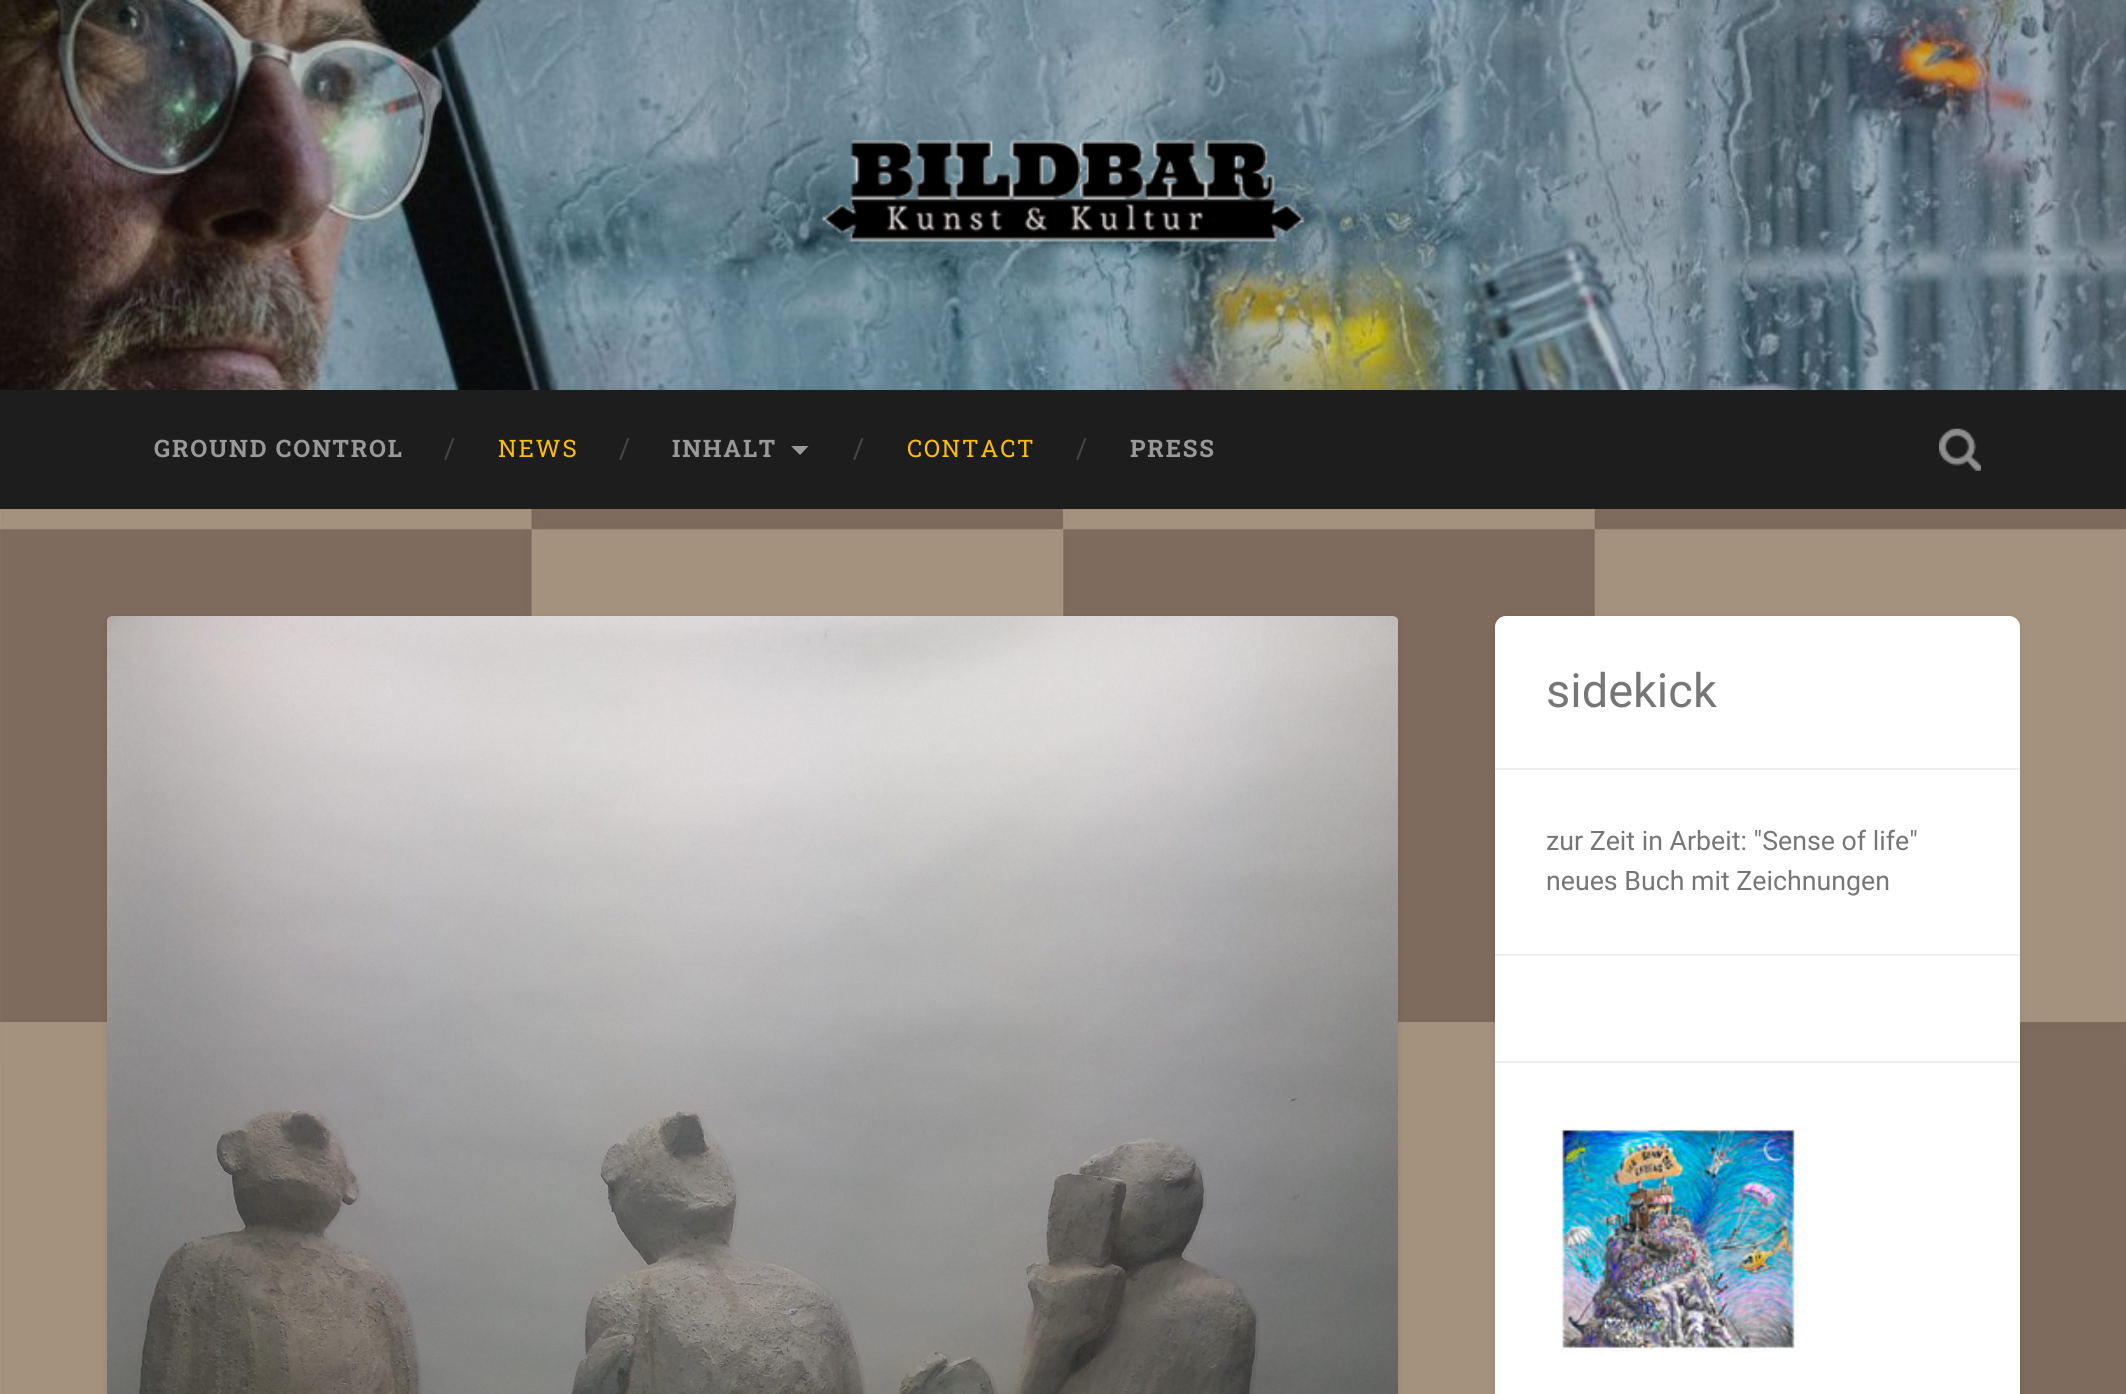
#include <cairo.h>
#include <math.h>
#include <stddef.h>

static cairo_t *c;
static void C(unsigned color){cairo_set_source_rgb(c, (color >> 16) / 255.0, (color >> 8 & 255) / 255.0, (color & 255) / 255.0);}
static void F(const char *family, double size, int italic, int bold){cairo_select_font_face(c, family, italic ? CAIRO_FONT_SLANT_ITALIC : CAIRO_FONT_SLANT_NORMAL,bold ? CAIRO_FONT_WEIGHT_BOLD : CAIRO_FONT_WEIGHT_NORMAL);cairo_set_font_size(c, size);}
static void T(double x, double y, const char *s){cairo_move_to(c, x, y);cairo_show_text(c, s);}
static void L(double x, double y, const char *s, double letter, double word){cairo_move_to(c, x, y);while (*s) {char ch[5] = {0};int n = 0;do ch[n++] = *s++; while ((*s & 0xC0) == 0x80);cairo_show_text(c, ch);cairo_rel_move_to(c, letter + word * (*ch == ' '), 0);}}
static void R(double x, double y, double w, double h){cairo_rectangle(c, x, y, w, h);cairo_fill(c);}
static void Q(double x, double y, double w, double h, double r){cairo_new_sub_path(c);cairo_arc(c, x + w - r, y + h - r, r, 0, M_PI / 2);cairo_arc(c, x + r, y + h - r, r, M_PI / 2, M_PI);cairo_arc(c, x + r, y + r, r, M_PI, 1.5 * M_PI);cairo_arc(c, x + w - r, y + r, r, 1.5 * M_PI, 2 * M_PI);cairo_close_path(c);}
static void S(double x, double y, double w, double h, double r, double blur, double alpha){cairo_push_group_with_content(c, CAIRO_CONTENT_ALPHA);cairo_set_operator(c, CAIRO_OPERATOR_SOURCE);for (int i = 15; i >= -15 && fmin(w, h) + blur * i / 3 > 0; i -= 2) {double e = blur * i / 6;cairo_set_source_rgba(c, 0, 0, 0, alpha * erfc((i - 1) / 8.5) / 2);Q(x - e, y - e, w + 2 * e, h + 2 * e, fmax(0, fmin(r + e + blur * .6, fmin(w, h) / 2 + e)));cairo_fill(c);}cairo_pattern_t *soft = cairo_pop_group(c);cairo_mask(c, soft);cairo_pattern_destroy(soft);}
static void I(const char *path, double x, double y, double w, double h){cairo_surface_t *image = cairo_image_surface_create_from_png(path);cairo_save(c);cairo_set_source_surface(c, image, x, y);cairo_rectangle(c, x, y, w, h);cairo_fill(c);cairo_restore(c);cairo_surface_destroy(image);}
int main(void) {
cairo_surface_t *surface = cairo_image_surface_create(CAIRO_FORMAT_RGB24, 2126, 1394);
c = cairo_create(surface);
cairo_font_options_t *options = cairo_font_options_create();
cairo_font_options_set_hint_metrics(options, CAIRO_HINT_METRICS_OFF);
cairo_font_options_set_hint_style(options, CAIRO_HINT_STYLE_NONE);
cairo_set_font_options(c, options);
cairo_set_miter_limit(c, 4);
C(0xffffff);
cairo_paint(c);
I("1.png",0,509,2126,885);
I("2.png",0,0,2126,390);
I("3.png",822,139,483,103);
C(0x1d1d1d);
R(0,390,2126,119);
F("Roboto Slab",24.1,0,1);
C(0x999999);
L(154,457,"GROUND CONTROL",1.75,0);
F("Roboto Slab",28,0,0);
C(0x444444);
T(444,458,"/");
F("Roboto Slab",24.1,0,0);
C(0xffbf00);
L(498,457,"NEWS",1.75,0);
F("Roboto Slab",28,0,0);
C(0x444444);
T(619,458,"/");
F("Roboto Slab",24.1,0,1);
C(0x999999);
L(672,457,"INHALT",1.75,0);
cairo_new_path(c);
cairo_move_to(c,791,446);
cairo_line_to(c,808.5,446);
cairo_line_to(c,800,455);
cairo_close_path(c);
cairo_fill(c);
F("Roboto Slab",28,0,0);
C(0x444444);
T(853,458,"/");
F("Roboto Slab",24.1,0,0);
C(0xffbf00);
L(907,457,"CONTACT",1.75,0);
F("Roboto Slab",28,0,0);
C(0x444444);
T(1076,458,"/");
F("Roboto Slab",24.1,0,1);
C(0x999999);
L(1130,457,"PRESS",1.75,0);
I("4.png",1939,428,42,43);
C(0x000000);
S(107,618,1291,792,5,3.5,.1);
I("5.png",107,616,1291,778);
S(1495,618,525,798,11,3.5,.1);
C(0xffffff);
Q(1495,616,525,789,11);
cairo_fill(c);
F("Roboto",47,0,0);
C(0x767676);
T(1546,707,"sidekick");
C(0xeeeeee);
R(1495,768,525,2);
F("Roboto",26.75,0,0);
C(0x767676);
T(1546,850,"zur Zeit in Arbeit: \"Sense of life\"");
T(1546,890,"neues Buch mit Zeichnungen");
C(0xeeeeee);
R(1495,954,525,2);
R(1495,1061,525,2);
I("6.png",1560,1128,240,225);
cairo_surface_write_to_png(surface, "o.png");
cairo_font_options_destroy(options);
cairo_destroy(c);
cairo_surface_destroy(surface);
return 0;
}
